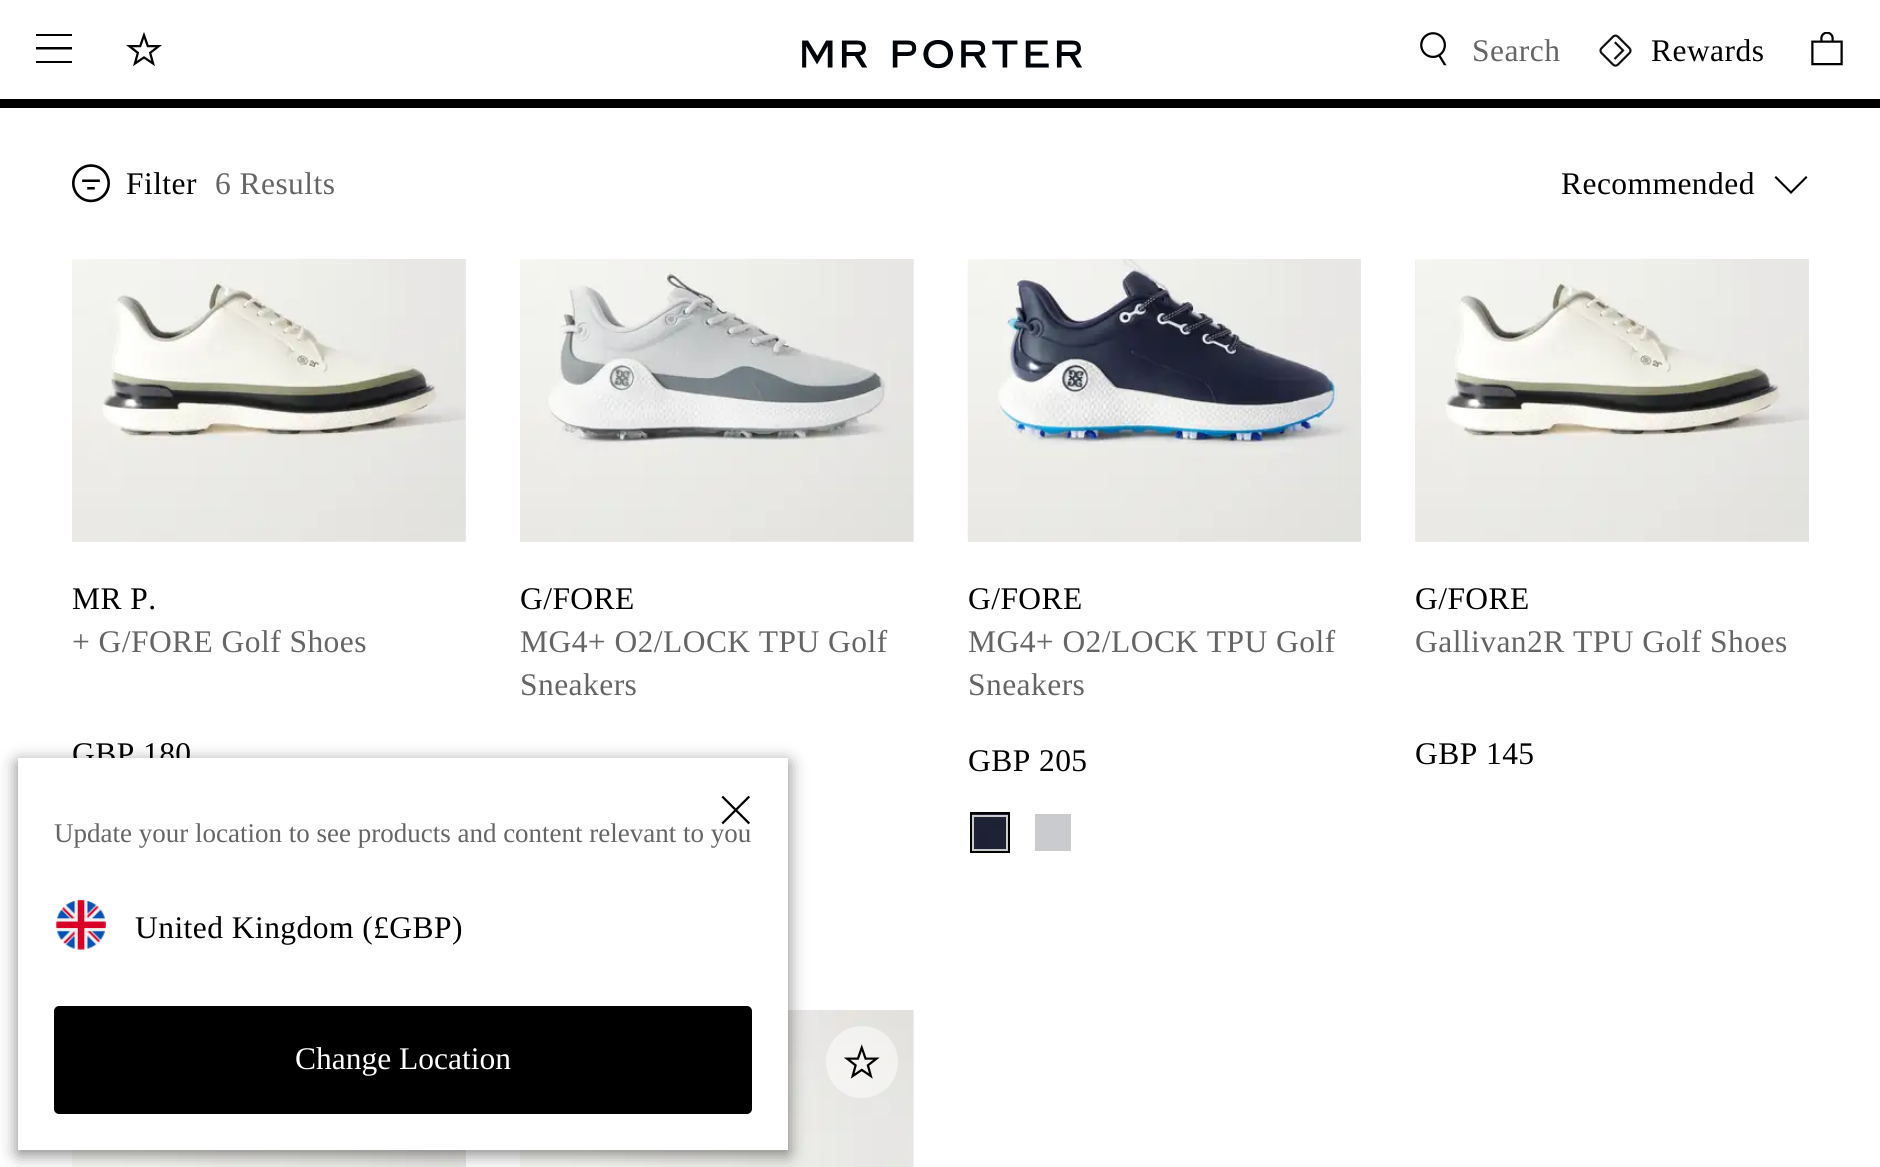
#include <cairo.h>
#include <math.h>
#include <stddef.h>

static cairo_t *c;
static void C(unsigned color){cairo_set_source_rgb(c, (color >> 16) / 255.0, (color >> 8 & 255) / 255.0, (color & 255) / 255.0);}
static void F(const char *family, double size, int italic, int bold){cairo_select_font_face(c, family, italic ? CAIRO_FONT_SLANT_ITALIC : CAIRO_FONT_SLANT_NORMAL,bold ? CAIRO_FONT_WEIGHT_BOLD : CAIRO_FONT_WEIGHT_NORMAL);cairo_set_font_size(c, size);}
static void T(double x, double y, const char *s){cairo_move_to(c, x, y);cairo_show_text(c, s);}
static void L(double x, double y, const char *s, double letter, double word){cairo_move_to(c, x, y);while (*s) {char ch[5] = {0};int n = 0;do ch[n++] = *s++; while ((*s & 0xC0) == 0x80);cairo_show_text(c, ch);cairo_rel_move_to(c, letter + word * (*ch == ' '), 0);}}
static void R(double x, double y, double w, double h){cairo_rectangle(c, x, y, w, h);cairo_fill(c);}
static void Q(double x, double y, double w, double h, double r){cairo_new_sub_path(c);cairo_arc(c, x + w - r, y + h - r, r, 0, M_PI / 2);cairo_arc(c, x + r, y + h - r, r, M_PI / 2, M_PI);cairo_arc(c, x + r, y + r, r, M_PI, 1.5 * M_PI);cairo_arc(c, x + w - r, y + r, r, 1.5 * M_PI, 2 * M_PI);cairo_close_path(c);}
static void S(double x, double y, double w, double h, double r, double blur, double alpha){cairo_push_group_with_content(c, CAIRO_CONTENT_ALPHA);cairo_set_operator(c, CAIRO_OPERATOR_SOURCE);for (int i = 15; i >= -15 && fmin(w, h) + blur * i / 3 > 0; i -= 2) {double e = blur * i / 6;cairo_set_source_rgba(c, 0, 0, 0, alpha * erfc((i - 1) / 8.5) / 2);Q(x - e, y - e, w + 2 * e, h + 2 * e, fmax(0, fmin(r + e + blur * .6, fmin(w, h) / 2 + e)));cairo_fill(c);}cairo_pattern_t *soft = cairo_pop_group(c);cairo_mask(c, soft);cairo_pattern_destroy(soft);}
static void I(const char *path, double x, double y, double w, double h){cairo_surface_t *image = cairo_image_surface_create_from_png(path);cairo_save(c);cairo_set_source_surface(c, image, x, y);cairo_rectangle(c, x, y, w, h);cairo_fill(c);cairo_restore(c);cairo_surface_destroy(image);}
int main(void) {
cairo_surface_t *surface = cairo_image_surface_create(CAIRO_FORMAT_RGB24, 1880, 1167);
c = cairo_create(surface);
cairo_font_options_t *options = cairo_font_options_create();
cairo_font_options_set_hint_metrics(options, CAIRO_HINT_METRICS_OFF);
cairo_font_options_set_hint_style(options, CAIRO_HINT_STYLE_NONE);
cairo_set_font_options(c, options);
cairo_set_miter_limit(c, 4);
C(0xffffff);
cairo_paint(c);
C(0x000000);
R(0,99,1880,9);
cairo_new_path(c);
cairo_move_to(c,36,63);
cairo_line_to(c,36,61);
cairo_line_to(c,72,61);
cairo_line_to(c,72,63);
cairo_close_path(c);
cairo_move_to(c,36,49.5);
cairo_line_to(c,36,47);
cairo_line_to(c,72,47);
cairo_line_to(c,72,49.5);
cairo_close_path(c);
cairo_move_to(c,36,34);
cairo_line_to(c,36,36);
cairo_line_to(c,72,36);
cairo_line_to(c,72,34);
cairo_close_path(c);
cairo_fill(c);
I("1.png",126,32,36,35);
I("2.png",802,39,280,30);
I("3.png",1420,32,27,34);
F("Liberation Serif",31.5,0,0);
C(0x656565);
L(1472,61,"Search",.45,0);
I("4.png",1599,34,33,33);
C(0x000000);
L(1651,61,"Rewards",.45,0);
I("5.png",1811,32,32,34);
C(0xf0f0f0);
R(465,1150,1,17);
I("14.png",72,1150,394,17);
R(913,1010,1,157);
I("15.png",520,1010,394,157);
C(0x000000);
S(18,763,770,391,0,9,.5);
C(0x000000);
L(72,764,"GBP 180",.45,0);
C(0xffffff);
R(18,758,770,392);
F("Liberation Serif",27,0,0);
C(0x656565);
T(54,842,"Update your location to see products and content relevant to you");
I("6.png",721,795,29,30);
I("7.png",56,899,50,51);
F("Liberation Serif",31.5,0,0);
C(0x000000);
L(135,938,"United Kingdom (£GBP)",.45,0);
Q(55,1007,696,106,4);
cairo_fill_preserve(c);
cairo_stroke(c);
C(0xffffff);
T(295,1069,"Change Location");
I("8.png",72,164,38,39);
C(0x000000);
L(126,194,"Filter",.45,0);
C(0x656565);
L(215,194,"6 Results",.45,0);
C(0x000000);
L(1561,194,"Recommended",.45,0);
cairo_new_path(c);
cairo_move_to(c,1791,194);
cairo_line_to(c,1774.5,177.5);
cairo_line_to(c,1776,176);
cairo_line_to(c,1791,191);
cairo_line_to(c,1806,176);
cairo_line_to(c,1807.5,177.5);
cairo_close_path(c);
cairo_fill(c);
C(0xf0f0f0);
R(72,259,394,283);
I("9.png",72,259,394,283);
C(0x000000);
L(72,609,"MR P.",.45,0);
C(0x656565);
L(72,652,"+ G/FORE Golf Shoes",.45,0);
C(0xf0f0f0);
R(520,259,394,283);
I("10.png",520,259,394,283);
C(0x000000);
L(520,609,"G/FORE",.45,0);
C(0x656565);
L(520,652,"MG4+ O2/LOCK TPU Golf",.45,0);
L(520,695,"Sneakers",.45,0);
C(0xf0f0f0);
R(968,541,393,1);
I("11.png",967,259,394,283);
C(0x000000);
L(968,609,"G/FORE",.45,0);
C(0x656565);
L(968,652,"MG4+ O2/LOCK TPU Golf",.45,0);
L(968,695,"Sneakers",.45,0);
C(0x000000);
L(968,771,"GBP 205",.45,0);
cairo_rectangle(c,971,813,38,39);
cairo_stroke(c);
I("12.png",972,814,36,35);
cairo_rectangle(c,973,816,34,34);
C(0xcbcbcb);
cairo_stroke(c);
C(0xc9cbcf);
R(1035,814,36,35);
cairo_rectangle(c,1036,816,34,34);
C(0xcbcbcb);
cairo_stroke(c);
C(0xf0f0f0);
R(1415,259,394,283);
I("13.png",1415,259,394,283);
C(0x000000);
L(1415,609,"G/FORE",.45,0);
C(0x656565);
L(1415,652,"Gallivan2R TPU Golf Shoes",.45,0);
C(0x000000);
L(1415,764,"GBP 145",.45,0);
cairo_set_source_rgba(c,1,1,1,0.5);
cairo_new_path(c);
cairo_arc(c,862,1062,36,0,2 * M_PI);
cairo_fill(c);
I("16.png",844,1044,36,35);
cairo_surface_write_to_png(surface, "o.png");
cairo_font_options_destroy(options);
cairo_destroy(c);
cairo_surface_destroy(surface);
return 0;
}
